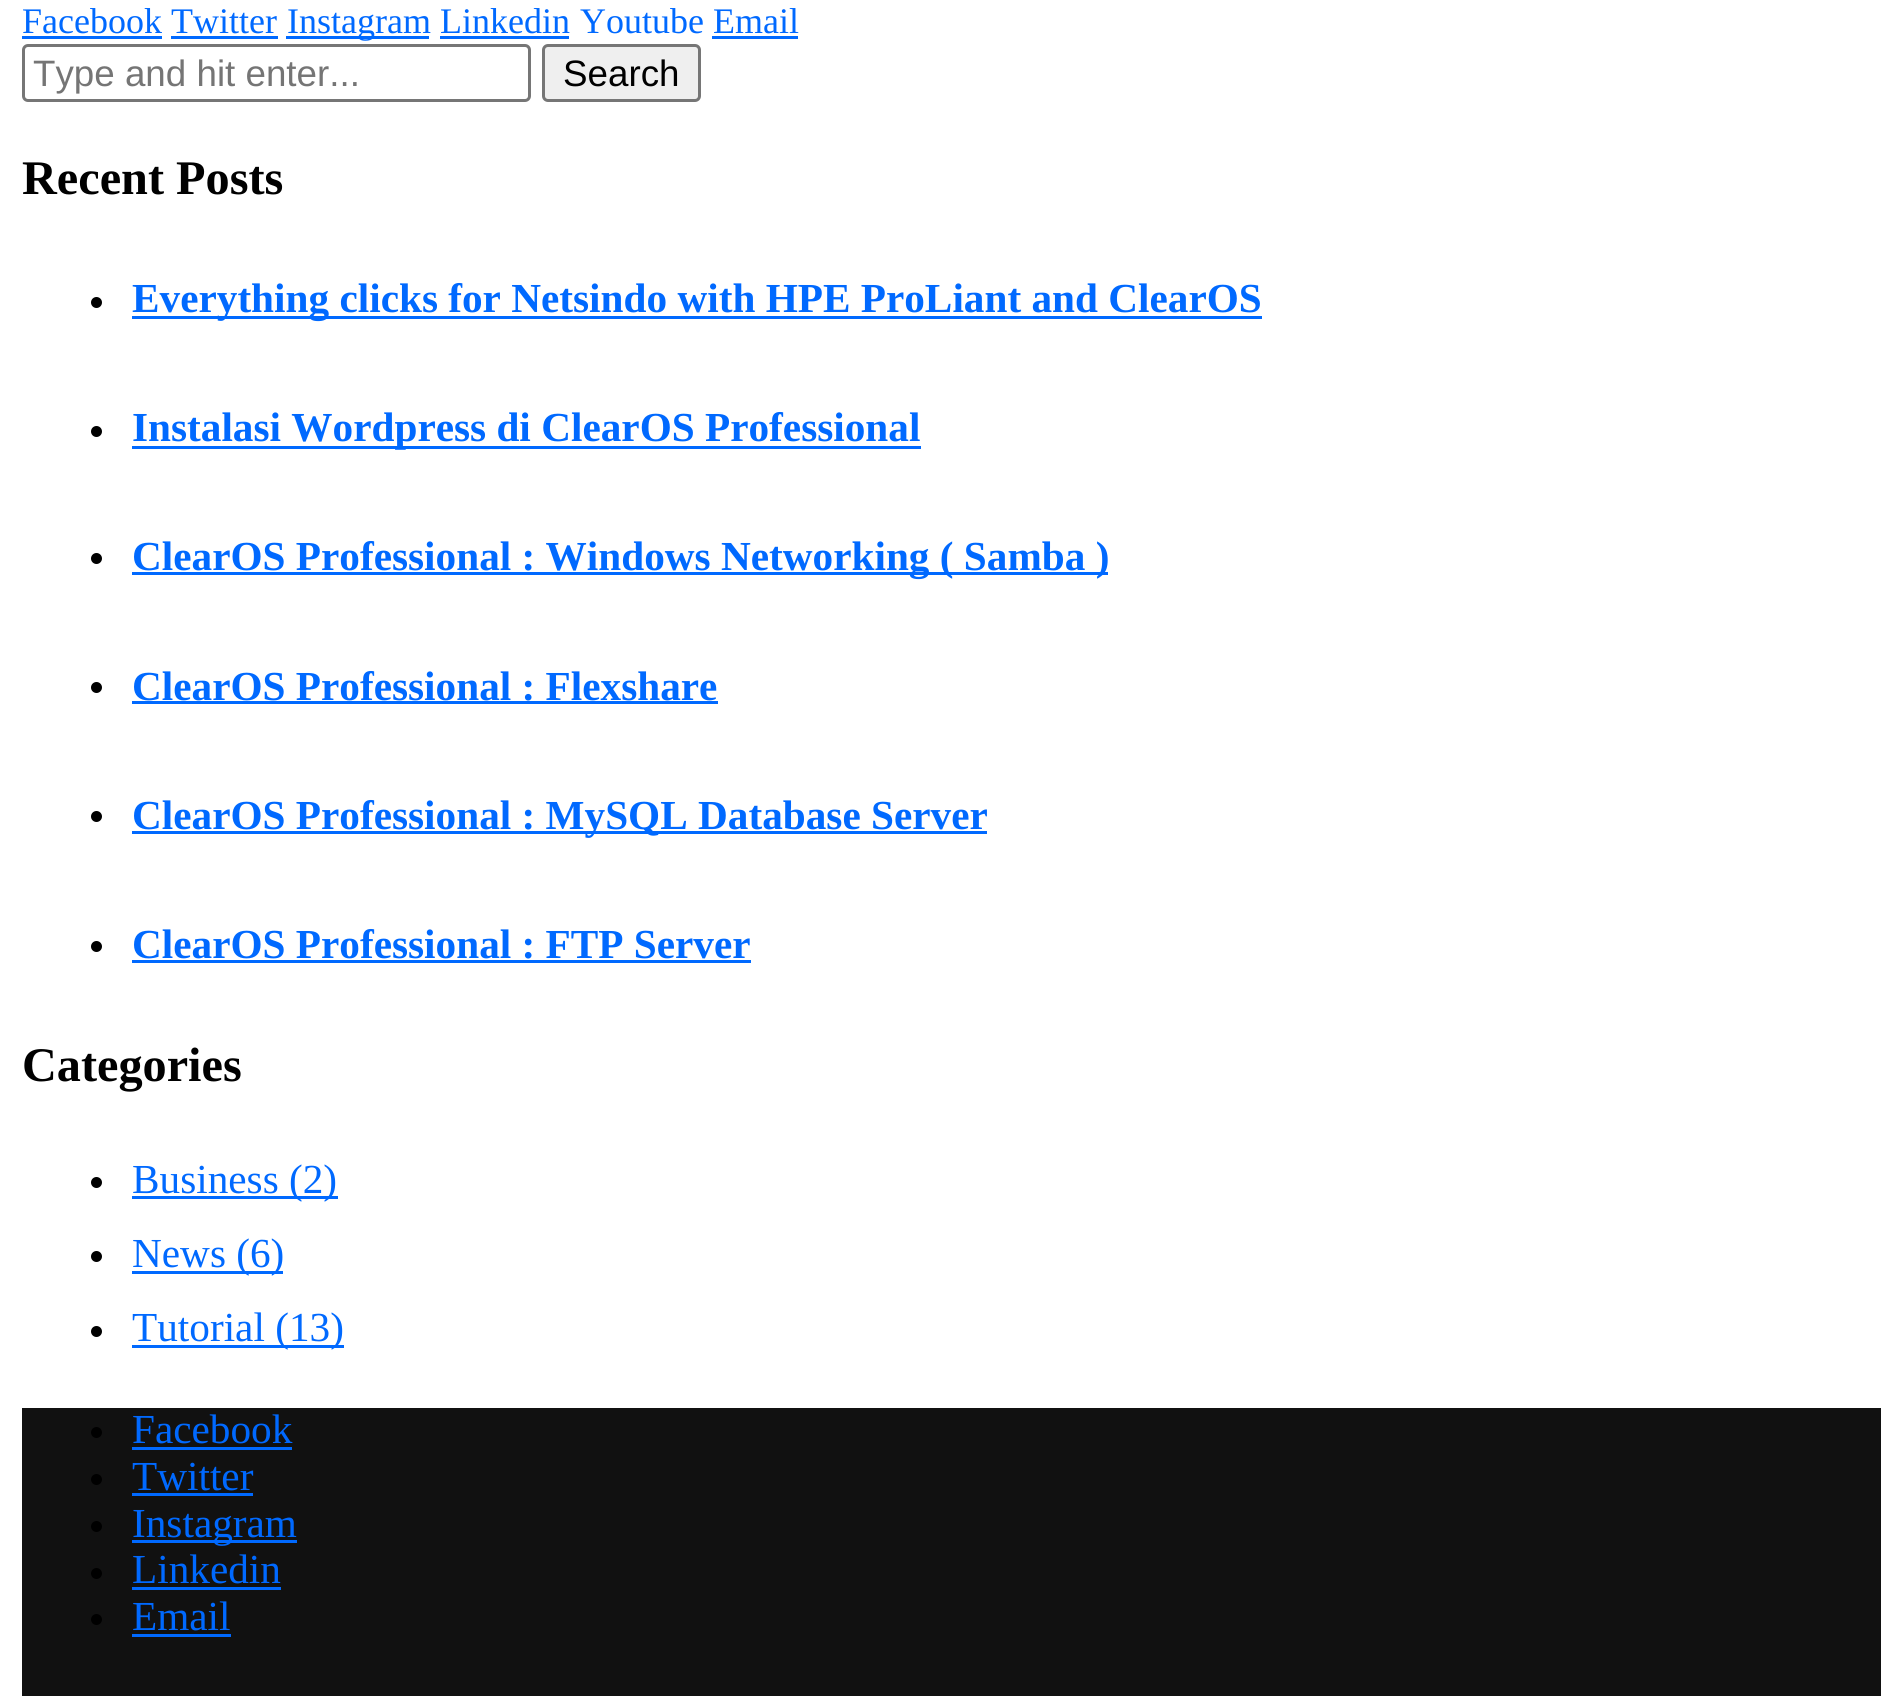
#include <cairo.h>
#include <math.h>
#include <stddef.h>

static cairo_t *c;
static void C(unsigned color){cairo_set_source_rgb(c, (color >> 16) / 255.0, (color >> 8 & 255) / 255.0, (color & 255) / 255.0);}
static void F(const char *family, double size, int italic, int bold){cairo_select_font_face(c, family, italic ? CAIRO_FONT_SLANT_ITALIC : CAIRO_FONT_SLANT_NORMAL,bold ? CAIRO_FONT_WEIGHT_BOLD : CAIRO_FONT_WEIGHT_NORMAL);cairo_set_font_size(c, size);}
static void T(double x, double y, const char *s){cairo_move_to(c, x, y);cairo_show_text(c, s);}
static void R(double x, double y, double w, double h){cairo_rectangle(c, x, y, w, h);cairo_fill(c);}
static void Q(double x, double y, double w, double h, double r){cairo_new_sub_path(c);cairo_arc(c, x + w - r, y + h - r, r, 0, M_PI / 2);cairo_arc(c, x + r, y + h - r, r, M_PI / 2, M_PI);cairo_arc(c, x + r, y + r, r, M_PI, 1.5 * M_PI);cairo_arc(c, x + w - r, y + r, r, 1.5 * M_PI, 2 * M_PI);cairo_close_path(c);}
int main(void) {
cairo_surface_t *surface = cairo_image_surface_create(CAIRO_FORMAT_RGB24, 1902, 1696);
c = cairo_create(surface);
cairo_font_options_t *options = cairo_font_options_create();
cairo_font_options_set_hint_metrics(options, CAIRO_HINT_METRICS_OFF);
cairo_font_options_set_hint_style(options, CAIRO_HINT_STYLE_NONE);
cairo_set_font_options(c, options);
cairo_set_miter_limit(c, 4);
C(0xffffff);
cairo_paint(c);
F("Liberation Serif",36,0,0);
C(0x0069ff);
T(22,33,"Facebook");
R(22,36,140,3);
T(171,33,"Twitter");
R(171,36,107,3);
R(286,36,143,3);
T(287,33,"Instagram");
T(440,33,"Linkedin");
R(440,36,129,3);
T(580,33,"Youtube");
T(713,33,"Email");
R(712,36,86,3);
Q(23.5,45.5,506,55,4.5);
C(0x767676);
cairo_set_line_width(c,3);
cairo_stroke(c);
F("Liberation Sans",36.75,0,0);
C(0x757575);
T(33,86,"Type and hit enter...");
C(0xefefef);
Q(543.5,45.5,156,55,4.5);
cairo_fill_preserve(c);
C(0x767676);
cairo_stroke(c);
C(0x000000);
T(563,86,"Search");
F("Liberation Serif",48.25,0,1);
T(22,194,"Recent Posts");
cairo_new_path(c);
cairo_arc(c,96.5,302.5,5.5,0,2 * M_PI);
cairo_fill(c);
C(0x0069ff);
R(132,316,1130,3);
F("Liberation Serif",41.25,0,1);
T(132,312,"Everything clicks for Netsindo with HPE ProLiant and ClearOS");
C(0x000000);
cairo_new_path(c);
cairo_arc(c,96.5,431.5,5.5,0,2 * M_PI);
cairo_fill(c);
C(0x0069ff);
R(132,446,789,3);
T(132,441,"Instalasi Wordpress di ClearOS Professional");
C(0x000000);
cairo_new_path(c);
cairo_arc(c,96.5,558.5,5.5,0,2 * M_PI);
cairo_fill(c);
C(0x0069ff);
R(132,572,976,3);
T(132,570,"ClearOS Professional : Windows Networking ( Samba )");
C(0x000000);
cairo_new_path(c);
cairo_arc(c,96.5,687.5,5.5,0,2 * M_PI);
cairo_fill(c);
C(0x0069ff);
T(132,700,"ClearOS Professional : Flexshare");
R(132,701,586,3);
C(0x000000);
cairo_new_path(c);
cairo_arc(c,96.5,816.5,5.5,0,2 * M_PI);
cairo_fill(c);
C(0x0069ff);
R(132,831,855,3);
T(132,829,"ClearOS Professional : MySQL Database Server");
C(0x000000);
cairo_new_path(c);
cairo_arc(c,96.5,946.5,5.5,0,2 * M_PI);
cairo_fill(c);
C(0x0069ff);
T(132,958,"ClearOS Professional : FTP Server");
R(132,960,619,3);
F("Liberation Serif",48.25,0,1);
C(0x000000);
T(22,1081,"Categories");
cairo_new_path(c);
cairo_arc(c,96.5,1182.5,5.5,0,2 * M_PI);
cairo_fill(c);
C(0x0069ff);
R(132,1196,206,3);
F("Liberation Serif",41.25,0,0);
T(132,1193,"Business (2)");
C(0x000000);
cairo_new_path(c);
cairo_arc(c,96.5,1256.5,5.5,0,2 * M_PI);
cairo_fill(c);
C(0x0069ff);
R(132,1271,151,3);
T(132,1267,"News (6)");
C(0x000000);
cairo_new_path(c);
cairo_arc(c,96.5,1331.5,5.5,0,2 * M_PI);
cairo_fill(c);
C(0x0069ff);
R(132,1345,212,3);
T(132,1341,"Tutorial (13)");
C(0x111111);
R(22,1408,1859,288);
C(0x000000);
cairo_new_path(c);
cairo_arc(c,96.5,1432.5,5.5,0,2 * M_PI);
cairo_fill(c);
C(0x0069ff);
T(132,1443,"Facebook");
R(132,1447,160,3);
C(0x000000);
cairo_new_path(c);
cairo_arc(c,96.5,1479.5,5.5,0,2 * M_PI);
cairo_fill(c);
C(0x0069ff);
T(132,1490,"Twitter");
R(132,1493,121,3);
C(0x000000);
cairo_new_path(c);
cairo_arc(c,96.5,1526.5,5.5,0,2 * M_PI);
cairo_fill(c);
C(0x0069ff);
R(132,1540,165,3);
T(132,1537,"Instagram");
C(0x000000);
cairo_new_path(c);
cairo_arc(c,96.5,1573.5,5.5,0,2 * M_PI);
cairo_fill(c);
C(0x0069ff);
T(132,1583,"Linkedin");
R(132,1587,149,3);
C(0x000000);
cairo_new_path(c);
cairo_arc(c,96.5,1619.5,5.5,0,2 * M_PI);
cairo_fill(c);
C(0x0069ff);
T(132,1630,"Email");
R(132,1634,99,3);
cairo_surface_write_to_png(surface, "o.png");
cairo_font_options_destroy(options);
cairo_destroy(c);
cairo_surface_destroy(surface);
return 0;
}
